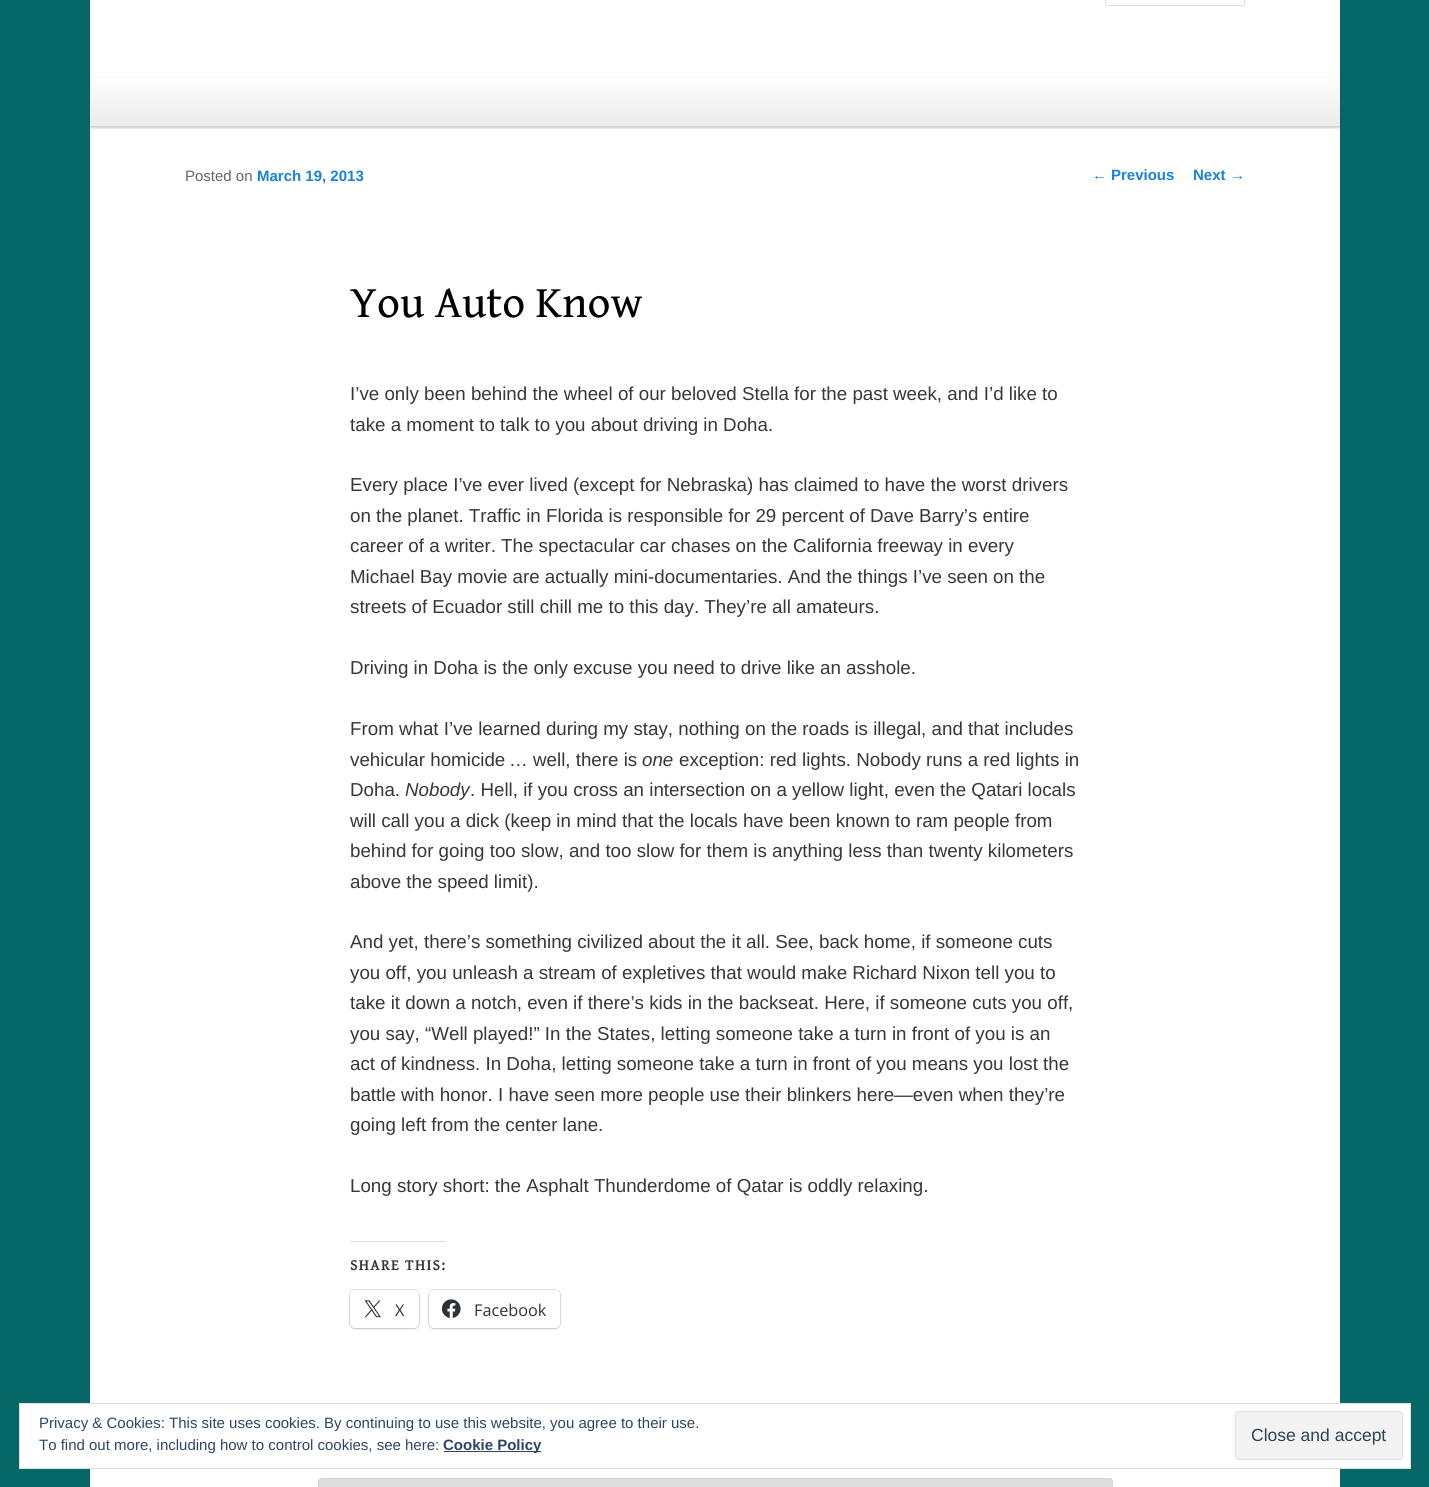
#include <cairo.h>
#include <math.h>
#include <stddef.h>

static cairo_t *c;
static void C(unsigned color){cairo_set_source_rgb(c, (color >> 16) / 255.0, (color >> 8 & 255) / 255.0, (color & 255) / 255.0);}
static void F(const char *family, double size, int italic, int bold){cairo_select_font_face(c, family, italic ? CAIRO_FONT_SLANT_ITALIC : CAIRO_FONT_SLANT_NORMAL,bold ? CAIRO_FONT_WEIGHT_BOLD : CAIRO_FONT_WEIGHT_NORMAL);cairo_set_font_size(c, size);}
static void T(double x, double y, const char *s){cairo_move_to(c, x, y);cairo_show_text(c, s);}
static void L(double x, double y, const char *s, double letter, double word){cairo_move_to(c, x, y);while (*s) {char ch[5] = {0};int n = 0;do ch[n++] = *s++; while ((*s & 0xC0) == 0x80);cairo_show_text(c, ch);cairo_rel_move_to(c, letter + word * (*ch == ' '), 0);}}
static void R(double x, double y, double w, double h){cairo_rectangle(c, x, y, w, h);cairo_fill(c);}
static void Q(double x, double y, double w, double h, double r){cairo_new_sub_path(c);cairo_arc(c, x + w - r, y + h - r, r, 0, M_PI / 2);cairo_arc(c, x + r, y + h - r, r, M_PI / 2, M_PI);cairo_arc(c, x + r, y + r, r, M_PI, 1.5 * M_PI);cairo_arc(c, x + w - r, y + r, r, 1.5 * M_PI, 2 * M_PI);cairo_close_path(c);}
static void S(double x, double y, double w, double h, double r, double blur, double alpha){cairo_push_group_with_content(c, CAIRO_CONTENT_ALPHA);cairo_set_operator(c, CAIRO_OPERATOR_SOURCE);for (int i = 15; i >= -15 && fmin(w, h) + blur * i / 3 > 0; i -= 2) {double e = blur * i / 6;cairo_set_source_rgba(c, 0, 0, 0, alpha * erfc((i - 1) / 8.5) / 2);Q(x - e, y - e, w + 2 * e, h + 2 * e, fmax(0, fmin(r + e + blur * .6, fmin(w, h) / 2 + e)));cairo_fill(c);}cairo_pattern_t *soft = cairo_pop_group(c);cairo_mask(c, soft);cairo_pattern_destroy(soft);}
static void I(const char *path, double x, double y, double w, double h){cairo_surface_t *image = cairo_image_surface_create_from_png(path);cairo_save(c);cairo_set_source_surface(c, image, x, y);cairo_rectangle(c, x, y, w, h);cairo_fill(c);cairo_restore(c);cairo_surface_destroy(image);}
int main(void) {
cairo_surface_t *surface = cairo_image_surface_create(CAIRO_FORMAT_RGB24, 1429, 1487);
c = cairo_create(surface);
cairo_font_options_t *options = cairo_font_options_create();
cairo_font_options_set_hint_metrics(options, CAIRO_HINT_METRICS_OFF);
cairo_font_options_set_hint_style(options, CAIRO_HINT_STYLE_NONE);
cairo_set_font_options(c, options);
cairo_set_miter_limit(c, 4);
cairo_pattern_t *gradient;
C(0x066769);
cairo_paint(c);
C(0xffffff);
R(90,0,1250,1487);
Q(1105.5,-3.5,139,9,2);
C(0xdddddd);
cairo_set_line_width(c,1);
cairo_stroke(c);
C(0x000000);
S(90,74,1250,54,0,1,.2);
gradient = cairo_pattern_create_linear(715,72,715,126);
cairo_pattern_add_color_stop_rgba(gradient,0,1,1,1,1);
cairo_pattern_add_color_stop_rgba(gradient,1,0.922,0.922,0.922,1);
cairo_set_source(c,gradient);
cairo_pattern_destroy(gradient);
R(90,73,1250,53);
F("Liberation Sans",15,0,0);
C(0x666666);
T(185,181,"Posted on");
F("Liberation Sans",15,0,1);
C(0x1982d1);
T(257,181,"March 19, 2013");
F("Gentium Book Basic",45,0,0);
C(0x000000);
T(350,317,"You Auto Know");
F("Liberation Sans",18.75,0,0);
C(0x373737);
T(350,400,"I’ve only been behind the wheel of our beloved Stella for the past week, and I’d like to");
T(350,431,"take a moment to talk to you about driving in Doha.");
T(350,491,"Every place I’ve ever lived (except for Nebraska) has claimed to have the worst drivers");
T(350,522,"on the planet. Traffic in Florida is responsible for 29 percent of Dave Barry’s entire");
T(350,552,"career of a writer. The spectacular car chases on the California freeway in every");
T(350,583,"Michael Bay movie are actually mini-documentaries. And the things I’ve seen on the");
T(350,613,"streets of Ecuador still chill me to this day. They’re all amateurs.");
T(350,674,"Driving in Doha is the only excuse you need to drive like an asshole.");
T(350,735,"From what I’ve learned during my stay, nothing on the roads is illegal, and that includes");
T(350,766,"vehicular homicide … well, there is");
F("Liberation Sans",18.75,1,0);
T(642,766,"one");
F("Liberation Sans",18.75,0,0);
T(679,766,"exception: red lights. Nobody runs a red lights in");
T(350,796,"Doha.");
F("Liberation Sans",18.75,1,0);
T(405,796,"Nobody");
F("Liberation Sans",18.75,0,0);
T(470,796,". Hell, if you cross an intersection on a yellow light, even the Qatari locals");
T(350,827,"will call you a dick (keep in mind that the locals have been known to ram people from");
T(350,857,"behind for going too slow, and too slow for them is anything less than twenty kilometers");
T(350,888,"above the speed limit).");
T(350,948,"And yet, there’s something civilized about the it all. See, back home, if someone cuts");
T(350,979,"you off, you unleash a stream of expletives that would make Richard Nixon tell you to");
T(350,1009,"take it down a notch, even if there’s kids in the backseat. Here, if someone cuts you off,");
T(350,1040,"you say, “Well played!” In the States, letting someone take a turn in front of you is an");
T(350,1070,"act of kindness. In Doha, letting someone take a turn in front of you means you lost the");
T(350,1101,"battle with honor. I have seen more people use their blinkers here—even when they’re");
T(350,1131,"going left from the center lane.");
T(350,1192,"Long story short: the Asphalt Thunderdome of Qatar is oddly relaxing.");
C(0xdcdcde);
R(350,1241,96,1);
F("Gentium Book Basic",15,0,1);
C(0x373737);
L(350,1270,"SHARE THIS:",1.5,0);
Q(349.5,1289.5,70,39,5.5);
C(0xe0e0e0);
cairo_stroke(c);
C(0x000000);
S(350,1291,69,38,5,1,.12);
C(0xffffff);
Q(350,1290,69,38,5);
cairo_fill(c);
I("1.png",364,1300,17,18);
F("Open Sans",16.25,0,0);
C(0x2c3338);
T(395,1316,"X");
Q(428.5,1289.5,132,39,5.5);
C(0xe0e0e0);
cairo_stroke(c);
C(0x000000);
S(429,1291,131,38,5,1,.12);
C(0xffffff);
Q(429,1290,131,38,5);
cairo_fill(c);
I("2.png",441,1299,20,19);
C(0x2c3338);
T(474,1316,"Facebook");
F("Liberation Sans",15,0,0);
C(0x1982d1);
T(1092,180,"←");
F("Liberation Sans",15,0,1);
T(1111,180,"Previous");
T(1193,180,"Next");
F("Liberation Sans",15,0,0);
T(1230,180,"→");
C(0xdddddd);
Q(318.5,1478.5,794,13,3.5);
cairo_fill_preserve(c);
C(0xd3d3d3);
cairo_stroke(c);
C(0xffffff);
cairo_rectangle(c,19.5,1403.5,1391,65);
cairo_fill_preserve(c);
C(0xdedede);
cairo_stroke(c);
C(0x2e4467);
T(39,1428,"Privacy & Cookies: This site uses cookies. By continuing to use this website, you agree to their use.");
C(0xf3f3f3);
Q(1235.5,1411.5,167,48,3.5);
cairo_fill_preserve(c);
C(0xdedede);
cairo_stroke(c);
F("Liberation Sans",17.5,0,0);
C(0x2e4453);
T(1251,1441,"Close and accept");
F("Liberation Sans",15,0,0);
C(0x2e4467);
T(39,1450,"To find out more, including how to control cookies, see here:");
R(444,1451,97,1);
F("Liberation Sans",15,0,1);
T(443,1450,"Cookie Policy");
cairo_surface_write_to_png(surface, "o.png");
cairo_font_options_destroy(options);
cairo_destroy(c);
cairo_surface_destroy(surface);
return 0;
}
